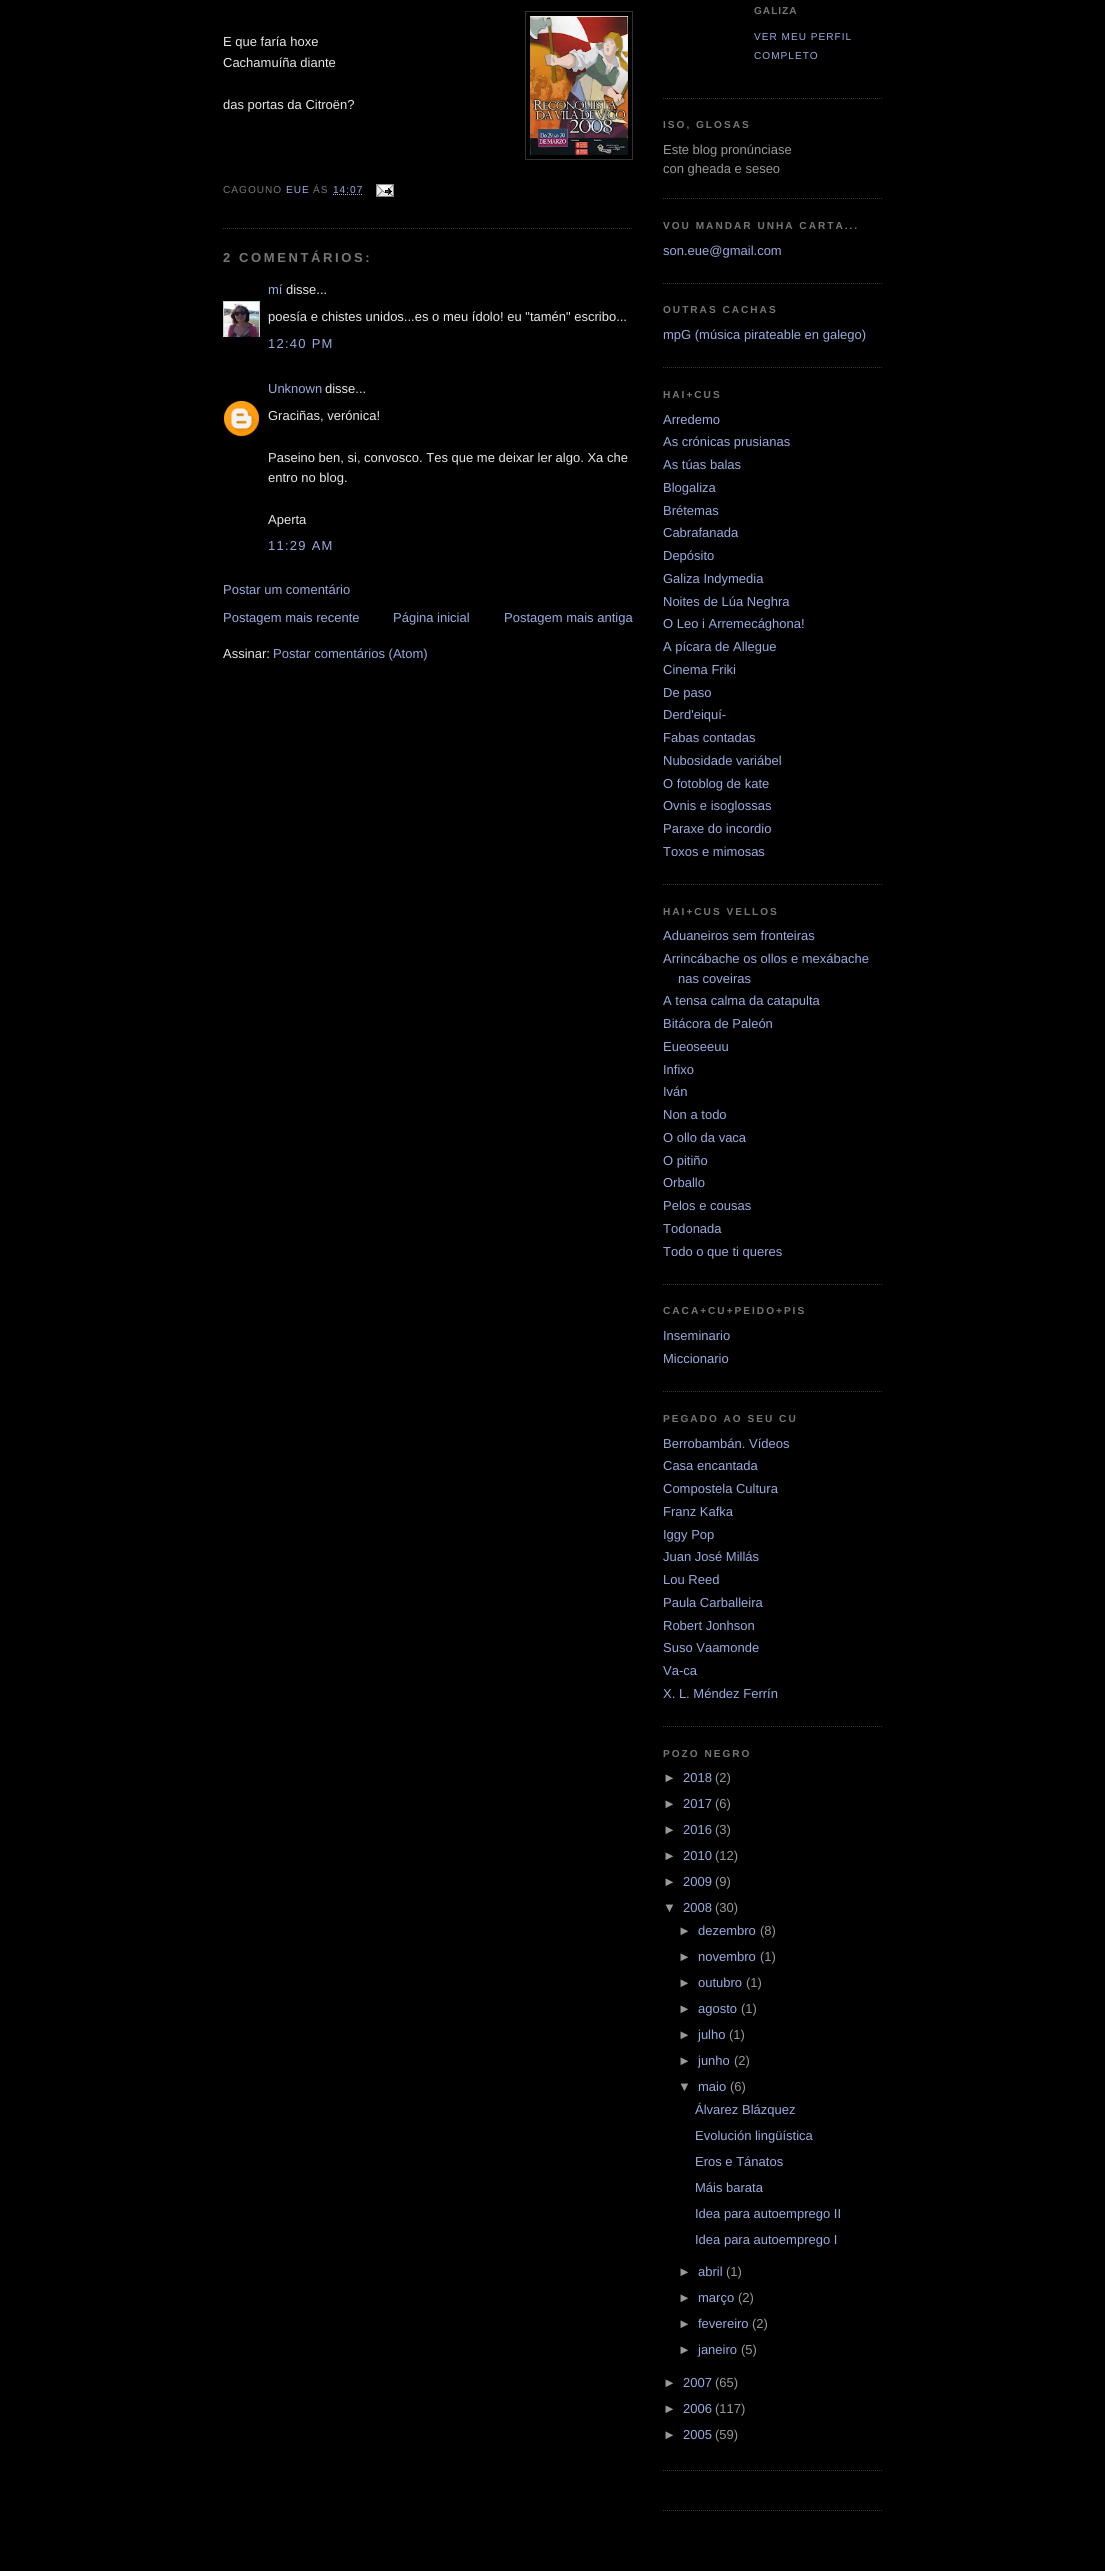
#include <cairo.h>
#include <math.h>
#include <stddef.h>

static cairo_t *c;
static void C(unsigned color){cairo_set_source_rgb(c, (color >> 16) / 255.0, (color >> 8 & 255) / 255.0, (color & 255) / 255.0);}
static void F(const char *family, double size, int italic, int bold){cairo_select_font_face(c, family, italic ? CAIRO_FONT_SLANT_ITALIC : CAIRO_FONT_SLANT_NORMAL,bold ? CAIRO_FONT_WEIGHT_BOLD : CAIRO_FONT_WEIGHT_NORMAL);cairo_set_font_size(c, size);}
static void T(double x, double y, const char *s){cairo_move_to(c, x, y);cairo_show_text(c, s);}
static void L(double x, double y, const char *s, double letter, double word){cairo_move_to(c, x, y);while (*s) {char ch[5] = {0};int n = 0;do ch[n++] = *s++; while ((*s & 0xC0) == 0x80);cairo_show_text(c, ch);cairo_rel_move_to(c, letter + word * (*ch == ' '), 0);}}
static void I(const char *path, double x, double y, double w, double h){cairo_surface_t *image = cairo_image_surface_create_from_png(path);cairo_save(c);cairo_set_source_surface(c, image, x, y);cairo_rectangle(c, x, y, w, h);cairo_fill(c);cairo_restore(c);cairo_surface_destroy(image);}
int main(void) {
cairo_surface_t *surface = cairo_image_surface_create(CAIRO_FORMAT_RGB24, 1105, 2571);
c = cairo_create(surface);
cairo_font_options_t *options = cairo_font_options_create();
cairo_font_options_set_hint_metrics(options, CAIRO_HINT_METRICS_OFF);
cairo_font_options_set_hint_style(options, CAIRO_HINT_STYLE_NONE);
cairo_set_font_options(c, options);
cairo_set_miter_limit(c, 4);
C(0x000000);
cairo_paint(c);
cairo_new_path(c);
cairo_move_to(c,223,228.5);
cairo_line_to(c,633,228.5);
C(0x333333);
cairo_set_line_width(c,1);
cairo_set_dash(c,(double[]){1,1},2,0);
cairo_stroke(c);
F("Liberation Sans",13,0,0);
C(0xe6e6e6);
T(223,46,"E que faría hoxe");
cairo_rectangle(c,525.5,11.5,107,148);
C(0x333333);
cairo_set_dash(c,NULL,0,0);
cairo_stroke(c);
I("1.png",530,16,98,139);
C(0xe6e6e6);
T(223,67,"Cachamuíña diante");
T(223,109,"das portas da Citroën?");
F("Liberation Sans",10.1,0,0);
C(0x777777);
L(223,193,"CAGOUNO",1,0);
C(0x99aadd);
L(286,193,"EUE",1,0);
C(0x777777);
L(313,193,"ÁS",1,0);
C(0x99aadd);
L(333,193,"14:07",1,0);
cairo_new_path(c);
cairo_move_to(c,333,194.5);
cairo_line_to(c,363,194.5);
cairo_set_dash(c,(double[]){1,1},2,0);
cairo_stroke(c);
I("2.png",376,184,18,13);
F("Liberation Sans",13,0,1);
C(0x777777);
L(223,262,"2 COMENTÁRIOS:",2.6,0);
F("Liberation Sans",13,0,0);
C(0x99aadd);
T(268,294,"mí");
C(0xe6e6e6);
T(286,294,"disse...");
cairo_save(c);
cairo_rectangle(c,223,301,37,36);
cairo_clip(c);
cairo_rectangle(c,223.5,301.5,36,36);
C(0xcccccc);
cairo_set_dash(c,NULL,0,0);
cairo_stroke(c);
cairo_restore(c);
I("3.png",224,302,35,35);
T(268,321,"poesía e chistes unidos...es o meu ídolo! eu \"tamén\" escribo...");
C(0x99aadd);
L(268,348,"12:40 PM",1.25,0);
T(268,393,"Unknown");
C(0xe6e6e6);
T(325,393,"disse...");
I("4.png",224,401,35,35);
T(268,420,"Graciñas, verónica!");
T(268,462,"Paseino ben, si, convosco. Tes que me deixar ler algo. Xa che");
T(268,482,"entro no blog.");
T(268,524,"Aperta");
C(0x99aadd);
L(268,550,"11:29 AM",1.25,0);
T(223,594,"Postar um comentário");
T(223,622,"Postagem mais recente");
T(393,622,"Página inicial");
T(504,622,"Postagem mais antiga");
C(0xe6e6e6);
T(223,658,"Assinar:");
C(0x99aadd);
T(273,658,"Postar comentários (Atom)");
cairo_new_path(c);
cairo_move_to(c,663,98.5);
cairo_line_to(c,883,98.5);
C(0x333333);
cairo_stroke(c);
F("Liberation Sans",10.1,0,1);
C(0x777777);
L(754,14,"GALIZA",1,0);
F("Liberation Sans",10.1,0,0);
C(0x99aadd);
L(754,40,"VER MEU PERFIL",1,0);
L(754,59,"COMPLETO",1,0);
cairo_new_path(c);
cairo_move_to(c,663,198.5);
cairo_line_to(c,883,198.5);
C(0x333333);
cairo_stroke(c);
F("Liberation Sans",10.1,0,1);
C(0x777777);
L(663,128,"ISO, GLOSAS",2,0);
F("Liberation Sans",13,0,0);
C(0x999999);
T(663,154,"Este blog pronúnciase");
T(663,173,"con gheada e seseo");
cairo_new_path(c);
cairo_move_to(c,663,283.5);
cairo_line_to(c,883,283.5);
C(0x333333);
cairo_stroke(c);
F("Liberation Sans",10.1,0,1);
C(0x777777);
L(663,229,"VOU MANDAR UNHA CARTA...",2,0);
F("Liberation Sans",13,0,0);
C(0x99aadd);
T(663,255,"son.eue@gmail.com");
cairo_new_path(c);
cairo_move_to(c,663,367.5);
cairo_line_to(c,883,367.5);
C(0x333333);
cairo_stroke(c);
F("Liberation Sans",10.1,0,1);
C(0x777777);
L(663,313,"OUTRAS CACHAS",2,0);
F("Liberation Sans",13,0,0);
C(0x99aadd);
T(663,339,"mpG (música pirateable en galego)");
cairo_new_path(c);
cairo_move_to(c,663,884.5);
cairo_line_to(c,883,884.5);
C(0x333333);
cairo_stroke(c);
F("Liberation Sans",10.1,0,1);
C(0x777777);
L(663,398,"HAI+CUS",2,0);
F("Liberation Sans",13,0,0);
C(0x99aadd);
T(663,424,"Arredemo");
T(663,446,"As crónicas prusianas");
T(663,469,"As túas balas");
T(663,492,"Blogaliza");
T(663,515,"Brétemas");
T(663,537,"Cabrafanada");
T(663,560,"Depósito");
T(663,583,"Galiza Indymedia");
T(663,606,"Noites de Lúa Neghra");
T(663,628,"O Leo i Arremecághona!");
T(663,651,"A pícara de Allegue");
T(663,674,"Cinema Friki");
T(663,697,"De paso");
T(663,719,"Derd'eiquí-");
T(663,742,"Fabas contadas");
T(663,765,"Nubosidade variábel");
T(663,788,"O fotoblog de kate");
T(663,810,"Ovnis e isoglossas");
T(663,833,"Paraxe do incordio");
T(663,856,"Toxos e mimosas");
cairo_new_path(c);
cairo_move_to(c,663,1284.5);
cairo_line_to(c,883,1284.5);
C(0x333333);
cairo_stroke(c);
F("Liberation Sans",10.1,0,1);
C(0x777777);
L(663,915,"HAI+CUS VELLOS",2,0);
F("Liberation Sans",13,0,0);
C(0x99aadd);
T(663,940,"Aduaneiros sem fronteiras");
T(663,963,"Arrincábache os ollos e mexábache");
T(678,983,"nas coveiras");
T(663,1005,"A tensa calma da catapulta");
T(663,1028,"Bitácora de Paleón");
T(663,1051,"Eueoseeuu");
T(663,1074,"Infixo");
T(663,1096,"Iván");
T(663,1119,"Non a todo");
T(663,1142,"O ollo da vaca");
T(663,1165,"O pitiño");
T(663,1187,"Orballo");
T(663,1210,"Pelos e cousas");
T(663,1233,"Todonada");
T(663,1256,"Todo o que ti queres");
cairo_new_path(c);
cairo_move_to(c,663,1391.5);
cairo_line_to(c,883,1391.5);
C(0x333333);
cairo_stroke(c);
F("Liberation Sans",10.1,0,1);
C(0x777777);
L(663,1314,"CACA+CU+PEIDO+PIS",2,0);
F("Liberation Sans",13,0,0);
C(0x99aadd);
T(663,1340,"Inseminario");
T(663,1363,"Miccionario");
cairo_new_path(c);
cairo_move_to(c,663,1726.5);
cairo_line_to(c,883,1726.5);
C(0x333333);
cairo_stroke(c);
F("Liberation Sans",10.1,0,1);
C(0x777777);
L(663,1422,"PEGADO AO SEU CU",2,0);
F("Liberation Sans",13,0,0);
C(0x99aadd);
T(663,1448,"Berrobambán. Vídeos");
T(663,1470,"Casa encantada");
T(663,1493,"Compostela Cultura");
T(663,1516,"Franz Kafka");
T(663,1539,"Iggy Pop");
T(663,1561,"Juan José Millás");
T(663,1584,"Lou Reed");
T(663,1607,"Paula Carballeira");
T(663,1630,"Robert Jonhson");
T(663,1652,"Suso Vaamonde");
T(663,1675,"Va-ca");
T(663,1698,"X. L. Méndez Ferrín");
cairo_new_path(c);
cairo_move_to(c,663,2470.5);
cairo_line_to(c,883,2470.5);
C(0x333333);
cairo_stroke(c);
F("Liberation Sans",10.1,0,1);
C(0x777777);
L(663,1757,"POZO NEGRO",2,0);
F("Liberation Sans",13,0,0);
C(0x999999);
T(663,1782,"►");
C(0x99aadd);
T(683,1782,"2018");
C(0x999999);
T(715,1782,"(2)");
T(663,1808,"►");
C(0x99aadd);
T(683,1808,"2017");
C(0x999999);
T(715,1808,"(6)");
T(663,1834,"►");
C(0x99aadd);
T(683,1834,"2016");
C(0x999999);
T(715,1834,"(3)");
T(663,1860,"►");
C(0x99aadd);
T(683,1860,"2010");
C(0x999999);
T(715,1860,"(12)");
T(663,1886,"►");
C(0x99aadd);
T(683,1886,"2009");
C(0x999999);
T(715,1886,"(9)");
T(663,1912,"▼");
C(0x99aadd);
T(683,1912,"2008");
C(0x999999);
T(715,1912,"(30)");
T(678,1935,"►");
C(0x99aadd);
T(698,1935,"dezembro");
C(0x999999);
T(760,1935,"(8)");
T(678,1961,"►");
C(0x99aadd);
T(698,1961,"novembro");
C(0x999999);
T(760,1961,"(1)");
T(678,1987,"►");
C(0x99aadd);
T(698,1987,"outubro");
C(0x999999);
T(746,1987,"(1)");
T(678,2013,"►");
C(0x99aadd);
T(698,2013,"agosto");
C(0x999999);
T(741,2013,"(1)");
T(678,2039,"►");
C(0x99aadd);
T(698,2039,"julho");
C(0x999999);
T(729,2039,"(1)");
T(678,2065,"►");
C(0x99aadd);
T(698,2065,"junho");
C(0x999999);
T(734,2065,"(2)");
T(678,2091,"▼");
C(0x99aadd);
T(698,2091,"maio");
C(0x999999);
T(730,2091,"(6)");
C(0x99aadd);
T(695,2114,"Álvarez Blázquez");
T(695,2140,"Evolución lingüística");
T(695,2166,"Eros e Tánatos");
T(695,2192,"Máis barata");
T(695,2218,"Idea para autoemprego II");
T(695,2244,"Idea para autoemprego I");
C(0x999999);
T(678,2276,"►");
C(0x99aadd);
T(698,2276,"abril");
C(0x999999);
T(726,2276,"(1)");
T(678,2302,"►");
C(0x99aadd);
T(698,2302,"março");
C(0x999999);
T(738,2302,"(2)");
T(678,2328,"►");
C(0x99aadd);
T(698,2328,"fevereiro");
C(0x999999);
T(752,2328,"(2)");
T(678,2354,"►");
C(0x99aadd);
T(698,2354,"janeiro");
C(0x999999);
T(741,2354,"(5)");
T(663,2387,"►");
C(0x99aadd);
T(683,2387,"2007");
C(0x999999);
T(715,2387,"(65)");
T(663,2413,"►");
C(0x99aadd);
T(683,2413,"2006");
C(0x999999);
T(715,2413,"(117)");
T(663,2439,"►");
C(0x99aadd);
T(683,2439,"2005");
C(0x999999);
T(715,2439,"(59)");
cairo_new_path(c);
cairo_move_to(c,663,2510.5);
cairo_line_to(c,883,2510.5);
C(0x333333);
cairo_stroke(c);
cairo_surface_write_to_png(surface, "o.png");
cairo_font_options_destroy(options);
cairo_destroy(c);
cairo_surface_destroy(surface);
return 0;
}
